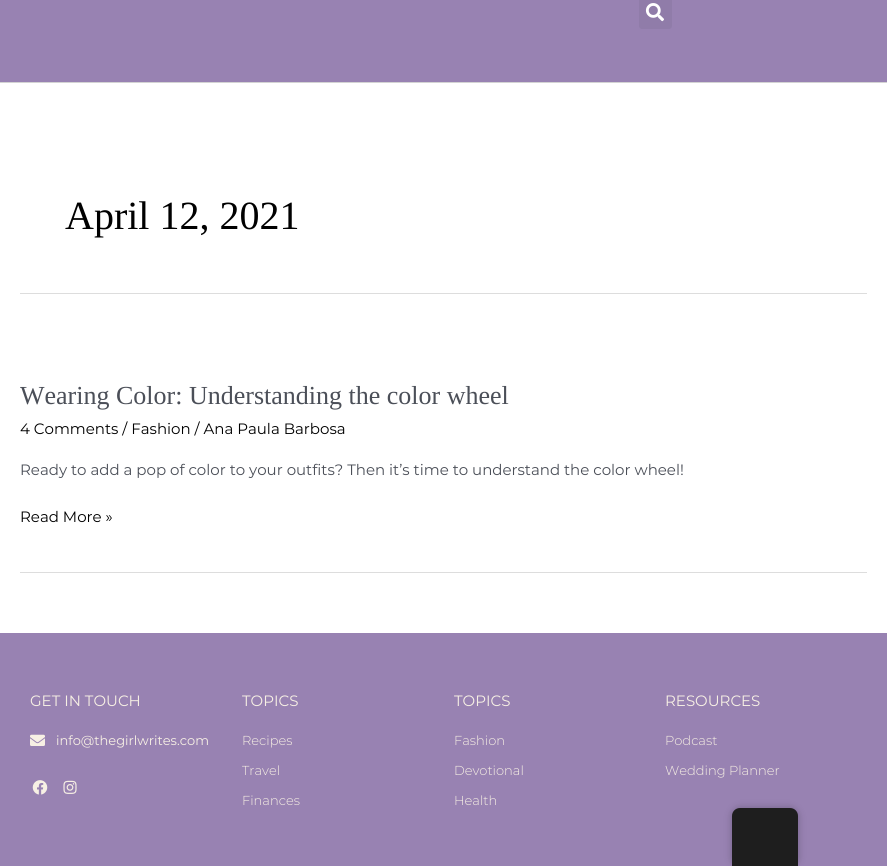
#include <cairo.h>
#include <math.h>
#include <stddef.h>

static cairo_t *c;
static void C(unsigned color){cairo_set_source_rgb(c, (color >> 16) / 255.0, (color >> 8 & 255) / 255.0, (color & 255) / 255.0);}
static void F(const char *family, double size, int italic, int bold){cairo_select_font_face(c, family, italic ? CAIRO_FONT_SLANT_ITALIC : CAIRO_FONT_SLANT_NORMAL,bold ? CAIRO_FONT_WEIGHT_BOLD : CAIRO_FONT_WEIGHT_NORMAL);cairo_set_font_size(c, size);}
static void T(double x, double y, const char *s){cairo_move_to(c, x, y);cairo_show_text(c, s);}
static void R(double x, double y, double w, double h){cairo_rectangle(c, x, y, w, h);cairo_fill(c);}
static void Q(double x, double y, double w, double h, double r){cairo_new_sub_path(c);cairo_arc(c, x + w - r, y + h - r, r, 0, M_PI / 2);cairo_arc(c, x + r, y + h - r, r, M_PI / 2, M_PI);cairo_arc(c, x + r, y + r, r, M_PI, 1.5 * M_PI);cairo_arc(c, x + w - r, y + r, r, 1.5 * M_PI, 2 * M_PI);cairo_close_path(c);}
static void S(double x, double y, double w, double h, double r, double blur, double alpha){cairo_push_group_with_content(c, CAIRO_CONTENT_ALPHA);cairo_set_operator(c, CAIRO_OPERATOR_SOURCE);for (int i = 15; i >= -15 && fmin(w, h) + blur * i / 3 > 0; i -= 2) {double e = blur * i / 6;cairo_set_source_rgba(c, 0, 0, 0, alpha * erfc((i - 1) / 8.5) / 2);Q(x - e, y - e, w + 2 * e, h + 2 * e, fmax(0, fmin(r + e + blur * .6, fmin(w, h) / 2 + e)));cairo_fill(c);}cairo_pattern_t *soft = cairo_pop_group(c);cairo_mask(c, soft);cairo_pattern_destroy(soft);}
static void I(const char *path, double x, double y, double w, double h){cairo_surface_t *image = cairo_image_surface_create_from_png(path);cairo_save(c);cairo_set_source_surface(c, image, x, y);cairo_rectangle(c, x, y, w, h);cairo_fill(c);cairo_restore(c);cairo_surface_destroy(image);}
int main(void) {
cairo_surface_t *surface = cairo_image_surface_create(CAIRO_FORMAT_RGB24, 887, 866);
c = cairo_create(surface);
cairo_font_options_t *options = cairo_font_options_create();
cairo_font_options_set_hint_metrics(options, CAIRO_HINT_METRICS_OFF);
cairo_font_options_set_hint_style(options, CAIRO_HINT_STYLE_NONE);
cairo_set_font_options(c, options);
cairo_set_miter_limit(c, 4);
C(0xffffff);
cairo_paint(c);
C(0x9882b2);
R(0,0,887,82);
C(0xd3d3d3);
R(0,82,887,1);
C(0x907ca9);
Q(639,-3,33,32,3);
cairo_fill(c);
I("1.png",645,3,19,19);
C(0xdddddd);
R(20,293,847,1);
F("Liberation Serif",40,0,0);
C(0x000000);
T(65,229,"April 12, 2021");
C(0xdddddd);
R(20,572,847,1);
F("Liberation Serif",26,0,0);
C(0x4b4f58);
T(20,404,"Wearing Color: Understanding the color wheel");
F("Montserrat",15,0,0);
C(0x000000);
T(20,434,"4 Comments / Fashion / Ana Paula Barbosa");
C(0x4b4f58);
T(20,475,"Ready to add a pop of color to your outfits? Then it’s time to understand the color wheel!");
C(0x000000);
T(20,522,"Read More »");
C(0x9882b2);
R(0,633,887,233);
C(0xf7f0e4);
T(30,706,"GET IN TOUCH");
I("2.png",30,734,15,12);
F("Montserrat",13,0,0);
T(56,745,"info@thegirlwrites.com");
I("3.png",32,780,16,15);
I("4.png",63,780,14,14);
F("Montserrat",15,0,0);
T(242,706,"TOPICS");
F("Montserrat Light",13,0,0);
T(242,745,"Recipes");
T(242,775,"Travel");
T(242,805,"Finances");
F("Montserrat",15,0,0);
T(454,706,"TOPICS");
F("Montserrat Light",13,0,0);
T(454,745,"Fashion");
T(454,775,"Devotional");
T(454,805,"Health");
F("Montserrat",15,0,0);
T(665,706,"RESOURCES");
F("Montserrat Light",13,0,0);
T(665,745,"Podcast");
T(665,775,"Wedding Planner");
C(0x000000);
S(732,808,66,58,8,4,.25);
C(0x1e1e1e);
cairo_new_path(c);
cairo_move_to(c,740,808);
cairo_line_to(c,790,808);
cairo_curve_to(c,794.5,808,798,811.5,798,816);
cairo_line_to(c,798,866);
cairo_line_to(c,732,866);
cairo_line_to(c,732,816);
cairo_curve_to(c,732,811.5,735.5,808,740,808);
cairo_close_path(c);
cairo_fill(c);
cairo_surface_write_to_png(surface, "o.png");
cairo_font_options_destroy(options);
cairo_destroy(c);
cairo_surface_destroy(surface);
return 0;
}
